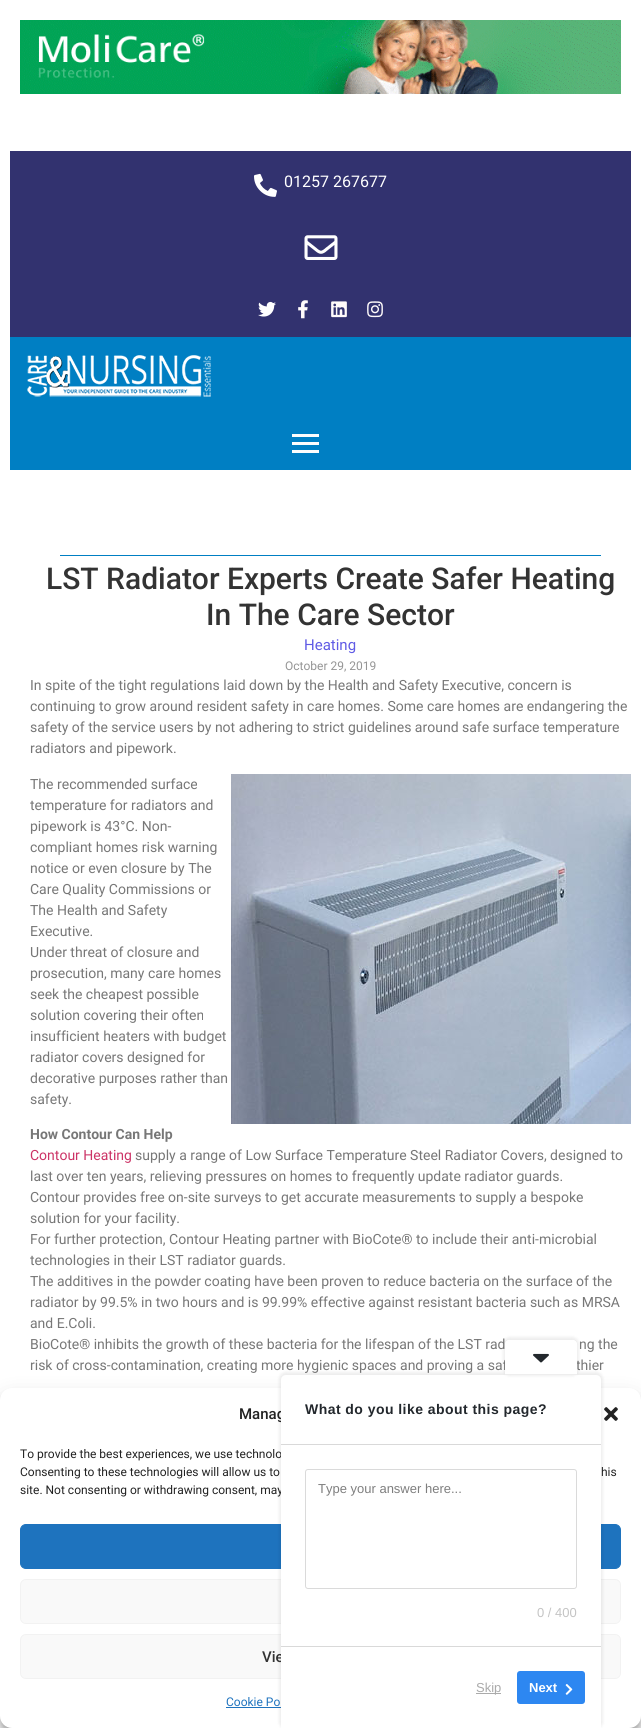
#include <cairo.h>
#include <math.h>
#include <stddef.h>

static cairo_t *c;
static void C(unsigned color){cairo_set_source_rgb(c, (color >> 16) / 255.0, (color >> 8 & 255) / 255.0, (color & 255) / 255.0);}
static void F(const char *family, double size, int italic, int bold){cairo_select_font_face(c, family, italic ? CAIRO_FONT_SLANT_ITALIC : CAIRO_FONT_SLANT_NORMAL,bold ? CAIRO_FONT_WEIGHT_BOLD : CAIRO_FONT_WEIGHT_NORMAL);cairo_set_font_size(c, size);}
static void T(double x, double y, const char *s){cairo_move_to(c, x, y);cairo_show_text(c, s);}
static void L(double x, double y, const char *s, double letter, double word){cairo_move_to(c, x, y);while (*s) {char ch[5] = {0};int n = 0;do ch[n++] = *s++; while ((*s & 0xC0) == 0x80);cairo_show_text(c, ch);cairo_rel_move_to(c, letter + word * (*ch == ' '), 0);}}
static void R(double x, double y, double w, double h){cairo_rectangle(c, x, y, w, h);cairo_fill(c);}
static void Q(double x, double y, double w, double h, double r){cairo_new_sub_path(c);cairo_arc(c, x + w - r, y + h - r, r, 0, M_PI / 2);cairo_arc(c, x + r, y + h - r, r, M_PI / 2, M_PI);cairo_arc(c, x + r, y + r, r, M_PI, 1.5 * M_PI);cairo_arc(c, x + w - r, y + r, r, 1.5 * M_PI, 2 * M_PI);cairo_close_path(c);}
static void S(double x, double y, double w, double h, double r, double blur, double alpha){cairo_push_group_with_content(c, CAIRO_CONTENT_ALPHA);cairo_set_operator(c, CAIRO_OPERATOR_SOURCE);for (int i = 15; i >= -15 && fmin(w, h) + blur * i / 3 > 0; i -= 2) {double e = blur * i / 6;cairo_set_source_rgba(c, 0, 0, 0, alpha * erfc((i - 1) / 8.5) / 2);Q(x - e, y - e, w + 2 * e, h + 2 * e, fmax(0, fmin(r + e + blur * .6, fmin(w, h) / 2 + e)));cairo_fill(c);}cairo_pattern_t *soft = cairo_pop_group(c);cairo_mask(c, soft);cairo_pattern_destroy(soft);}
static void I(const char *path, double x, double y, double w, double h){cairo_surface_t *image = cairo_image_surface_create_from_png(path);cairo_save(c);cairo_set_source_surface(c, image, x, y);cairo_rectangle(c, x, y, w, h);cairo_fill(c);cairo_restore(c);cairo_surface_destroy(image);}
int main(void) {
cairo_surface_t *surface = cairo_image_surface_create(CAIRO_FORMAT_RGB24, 641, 1728);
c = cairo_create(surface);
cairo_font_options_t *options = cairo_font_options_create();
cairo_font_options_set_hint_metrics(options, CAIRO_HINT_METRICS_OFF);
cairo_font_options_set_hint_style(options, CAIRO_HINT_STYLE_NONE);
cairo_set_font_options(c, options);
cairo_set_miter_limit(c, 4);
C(0xffffff);
cairo_paint(c);
I("1.png",20,20,601,74);
C(0x32326f);
R(10,151,621,186);
I("2.png",254,173,23,24);
F("Roboto",16,0,0);
C(0xffffff);
T(284,187,"01257 267677");
I("3.png",304,235,34,25);
I("4.png",258,301,18,16);
I("5.png",298,300,10,19);
I("6.png",331,301,16,17);
I("7.png",367,301,16,17);
C(0x007fc3);
R(10,337,621,133);
I("8.png",27,355,184,42);
C(0xfdfdfd);
R(292,434,27,3);
R(292,442,27,3);
R(292,450,27,3);
C(0x007fc3);
R(60,555,541,1);
F("Roboto Medium",30,0,0);
C(0x333333);
T(46,589,"LST Radiator Experts Create Safer Heating");
T(206,625,"In The Care Sector");
F("Roboto",15,0,0);
C(0x605be5);
T(304,650,"Heating");
F("Roboto",12,0,0);
C(0x959595);
T(285,670,"October 29, 2019");
F("Roboto",14,0,0);
C(0x777777);
T(30,690,"In spite of the tight regulations laid down by the Health and Safety Executive, concern is");
T(30,711,"continuing to grow around resident safety in care homes. Some care homes are endangering the");
T(30,732,"safety of the service users by not adhering to strict guidelines around safe surface temperature");
T(30,753,"radiators and pipework.");
T(30,789,"The recommended surface");
T(30,810,"temperature for radiators and");
T(30,831,"pipework is 43°C. Non-");
T(30,852,"compliant homes risk warning");
T(30,873,"notice or even closure by The");
T(30,894,"Care Quality Commissions or");
T(30,915,"The Health and Safety");
T(30,936,"Executive.");
T(30,957,"Under threat of closure and");
T(30,978,"prosecution, many care homes");
T(30,999,"seek the cheapest possible");
T(30,1020,"solution covering their often");
T(30,1041,"insufficient heaters with budget");
T(30,1062,"radiator covers designed for");
T(30,1083,"decorative purposes rather than");
T(30,1104,"safety.");
I("9.png",231,774,400,350);
F("Roboto",14,0,1);
T(30,1139,"How Contour Can Help");
F("Roboto",14,0,0);
C(0xcc3366);
T(30,1160,"Contour Heating");
C(0x777777);
T(135,1160,"supply a range of Low Surface Temperature Steel Radiator Covers, designed to");
T(30,1181,"last over ten years, relieving pressures on homes to frequently update radiator guards.");
T(30,1202,"Contour provides free on-site surveys to get accurate measurements to supply a bespoke");
T(30,1223,"solution for your facility.");
T(30,1244,"For further protection, Contour Heating partner with BioCote® to include their anti-microbial");
T(30,1265,"technologies in their LST radiator guards.");
T(30,1286,"The additives in the powder coating have been proven to reduce bacteria on the surface of the");
T(30,1307,"radiator by 99.5% in two hours and is 99.99% effective against resistant bacteria such as MRSA");
T(30,1328,"and E.Coli.");
T(30,1349,"BioCote® inhibits the growth of these bacteria for the lifespan of the LST rad");
T(579,1349,"ng the");
T(30,1370,"risk of cross-contamination, creating more hygienic spaces and proving a saf");
T(576,1370,"thier");
C(0x000000);
S(0,1394,641,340,12,3,.23);
S(0,1398,641,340,12,10,.19);
C(0xffffff);
Q(0,1388,641,340,12);
cairo_fill(c);
I("12.png",604,1407,14,14);
C(0x1e73be);
Q(20.5,1524.5,600,44,5.5);
cairo_fill_preserve(c);
cairo_set_line_width(c,1);
cairo_stroke(c);
C(0xf9f9f9);
Q(20.5,1579.5,600,44,5.5);
cairo_fill_preserve(c);
C(0xf2f2f2);
cairo_stroke(c);
C(0xf9f9f9);
Q(20.5,1634.5,600,44,5.5);
cairo_fill_preserve(c);
C(0xf2f2f2);
cairo_stroke(c);
C(0x1e73be);
R(226,1707,55,1);
C(0x000000);
S(279,1372,324,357,7,1.5,.07);
F("Roboto Medium",15,0,0);
C(0x222222);
T(239,1419,"Manag");
F("Roboto",12,0,0);
T(20,1458,"To provide the best experiences, we use technolo");
T(20,1494,"site. Not consenting or withdrawing consent, may");
F("Roboto Medium",15,0,0);
C(0x333333);
T(262,1662,"Vie");
C(0xffffff);
cairo_new_path(c);
cairo_move_to(c,286,1375);
cairo_line_to(c,596,1375);
cairo_curve_to(c,599,1375,601,1377,601,1380);
cairo_line_to(c,601,1728);
cairo_line_to(c,281,1728);
cairo_line_to(c,281,1380);
cairo_curve_to(c,281,1377,283,1375,286,1375);
cairo_close_path(c);
cairo_fill(c);
cairo_save(c);
cairo_set_fill_rule(c,CAIRO_FILL_RULE_EVEN_ODD);
cairo_new_path(c);
cairo_move_to(c,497,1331);
cairo_line_to(c,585,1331);
cairo_line_to(c,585,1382);
cairo_line_to(c,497,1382);
cairo_close_path(c);
cairo_move_to(c,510,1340);
cairo_line_to(c,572,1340);
cairo_curve_to(c,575,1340,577,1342,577,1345);
cairo_line_to(c,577,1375);
cairo_line_to(c,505,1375);
cairo_line_to(c,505,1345);
cairo_curve_to(c,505,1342,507,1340,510,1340);
cairo_close_path(c);
cairo_clip(c);
C(0x000000);
S(503,1337,76,39,7,1.5,.07);
cairo_restore(c);
cairo_new_path(c);
cairo_move_to(c,510,1340);
cairo_line_to(c,572,1340);
cairo_curve_to(c,575,1340,577,1342,577,1345);
cairo_line_to(c,577,1374);
cairo_line_to(c,505,1374);
cairo_line_to(c,505,1345);
cairo_curve_to(c,505,1342,507,1340,510,1340);
cairo_close_path(c);
cairo_fill(c);
I("10.png",533,1353,16,10);
F("Liberation Sans",14,0,1);
C(0x23282d);
L(305,1414,"What do you like about this page?",.45,0);
C(0xd9d9d9);
R(281,1444,320,1);
R(281,1646,320,1);
Q(305.5,1469.5,271,119,2.5);
C(0xdadada);
cairo_stroke(c);
F("Liberation Sans",13,0,0);
C(0x7e7e7e);
T(318,1493,"Type your answer here...");
C(0xc4c4c4);
T(537,1617,"0 / 400");
C(0xaaaaaa);
R(476,1693,25,1);
T(476,1692,"Skip");
C(0x2d87f1);
Q(517,1671,68,33,3);
cairo_fill(c);
F("Liberation Sans",13,0,1);
C(0xffffff);
T(529,1692,"Next");
I("11.png",565,1684,8,11);
F("Roboto",12,0,0);
C(0x222222);
T(20,1476,"Consenting to these technologies will allow us to");
T(601,1476,"his");
C(0x1e73be);
T(226,1706,"Cookie Po");
cairo_surface_write_to_png(surface, "o.png");
cairo_font_options_destroy(options);
cairo_destroy(c);
cairo_surface_destroy(surface);
return 0;
}
